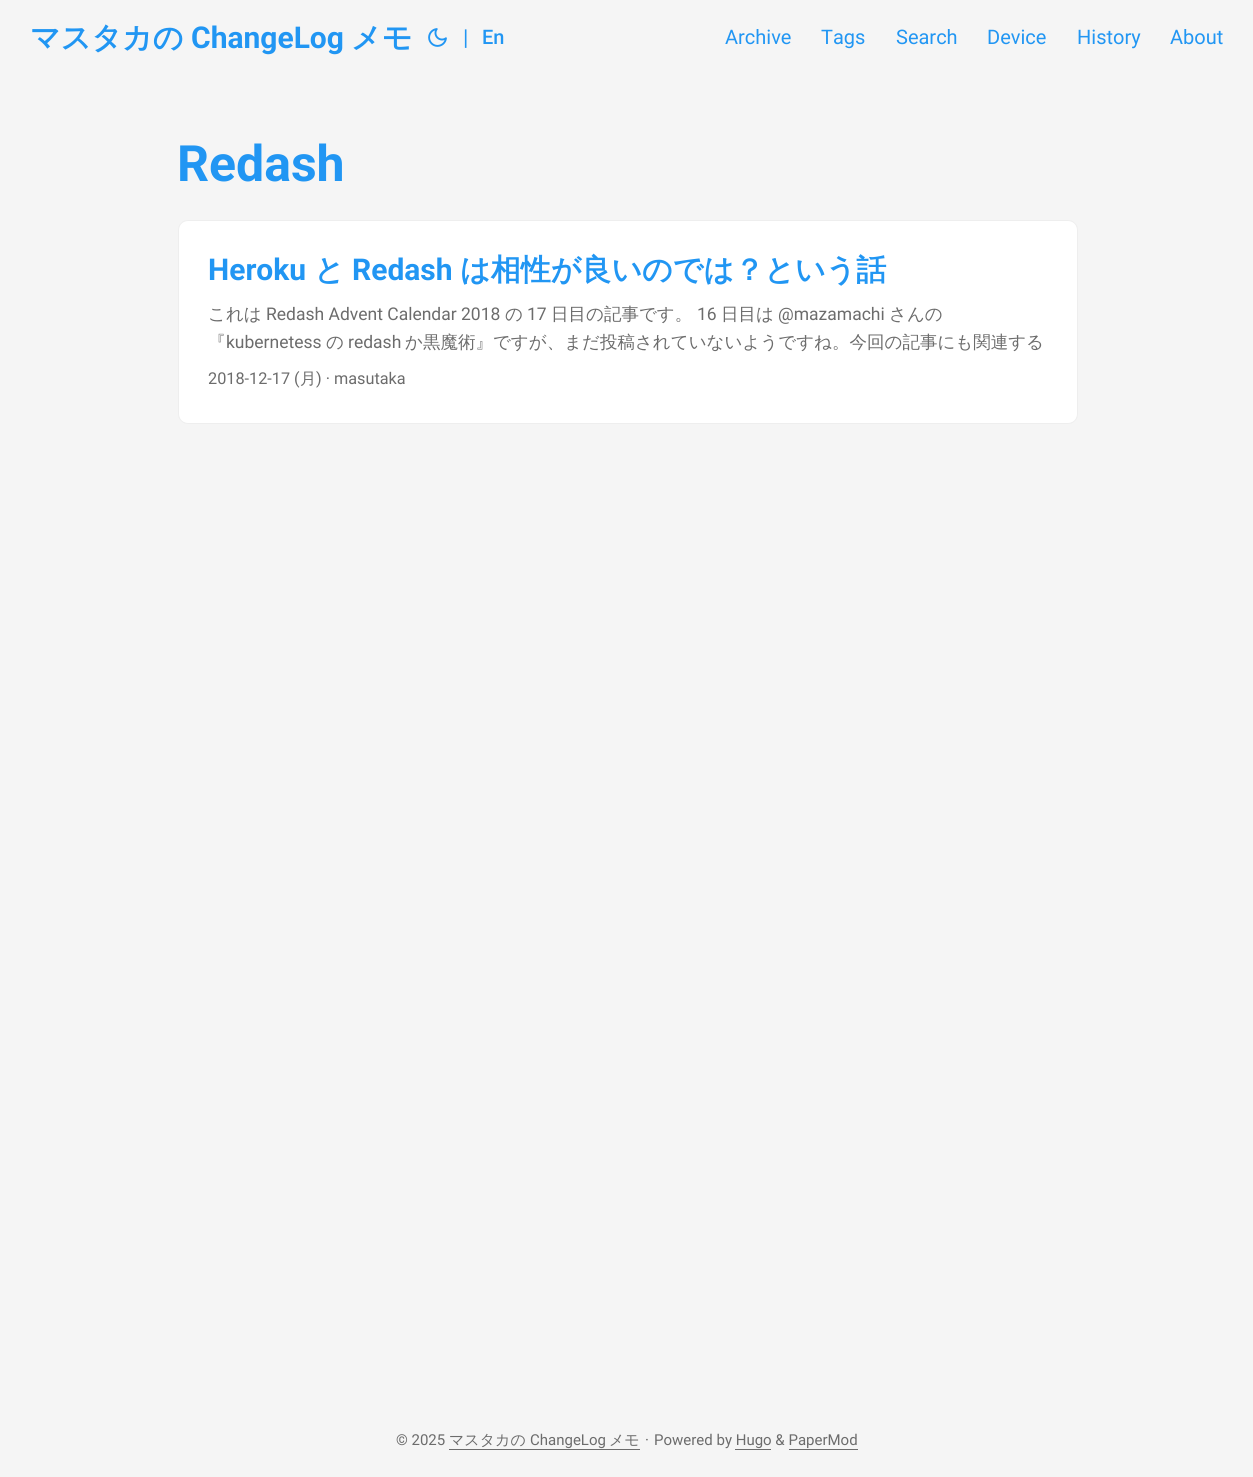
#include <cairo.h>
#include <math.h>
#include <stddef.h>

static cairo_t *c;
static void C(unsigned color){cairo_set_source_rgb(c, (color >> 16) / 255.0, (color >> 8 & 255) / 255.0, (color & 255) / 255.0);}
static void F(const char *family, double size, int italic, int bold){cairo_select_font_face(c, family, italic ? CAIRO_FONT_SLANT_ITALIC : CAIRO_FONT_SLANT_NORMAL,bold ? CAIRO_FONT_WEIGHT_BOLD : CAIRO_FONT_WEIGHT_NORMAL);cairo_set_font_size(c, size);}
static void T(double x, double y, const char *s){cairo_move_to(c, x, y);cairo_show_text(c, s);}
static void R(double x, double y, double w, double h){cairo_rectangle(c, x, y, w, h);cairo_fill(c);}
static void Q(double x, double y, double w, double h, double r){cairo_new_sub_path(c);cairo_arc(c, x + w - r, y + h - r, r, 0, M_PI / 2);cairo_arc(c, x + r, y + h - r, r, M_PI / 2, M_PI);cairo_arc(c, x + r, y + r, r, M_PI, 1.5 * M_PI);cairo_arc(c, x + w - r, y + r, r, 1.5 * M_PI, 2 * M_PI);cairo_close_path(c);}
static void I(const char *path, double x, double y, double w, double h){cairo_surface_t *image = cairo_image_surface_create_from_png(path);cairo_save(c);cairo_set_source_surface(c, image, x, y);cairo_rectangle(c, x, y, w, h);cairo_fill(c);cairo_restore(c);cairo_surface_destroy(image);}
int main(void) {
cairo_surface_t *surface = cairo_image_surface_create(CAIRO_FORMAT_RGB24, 1253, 1477);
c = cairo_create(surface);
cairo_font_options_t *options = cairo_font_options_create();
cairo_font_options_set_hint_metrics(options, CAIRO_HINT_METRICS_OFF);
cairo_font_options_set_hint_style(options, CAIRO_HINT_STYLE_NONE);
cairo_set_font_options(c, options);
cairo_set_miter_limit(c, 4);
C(0xf5f5f5);
cairo_paint(c);
F("WenQuanYi Zen Hei",30,0,1);
C(0x2196f3);
T(30,48,"マスタカの");
F("Roboto",30,0,1);
T(191,48,"ChangeLog");
F("WenQuanYi Zen Hei",30,0,1);
T(351,48,"メモ");
I("1.png",428,28,19,19);
F("Roboto",22,0,0);
T(463,45,"|");
F("Roboto Medium",20,0,0);
T(482,44,"En");
F("Roboto",20,0,0);
T(725,44,"Archive");
T(821,44,"Tags");
T(896,44,"Search");
T(987,44,"Device");
T(1077,44,"History");
T(1170,44,"About");
F("Roboto",50,0,1);
T(177,181,"Redash");
C(0xffffff);
Q(178.5,220.5,899,203,9.5);
cairo_fill_preserve(c);
C(0xeeeeee);
cairo_set_line_width(c,1);
cairo_stroke(c);
F("Roboto",30,0,1);
C(0x2196f3);
T(208,280,"Heroku");
F("WenQuanYi Zen Hei",30,0,1);
T(314,280,"と");
F("Roboto",30,0,1);
T(352,280,"Redash");
F("WenQuanYi Zen Hei",30,0,1);
T(460,280,"は相性が良いのでは？という話");
F("WenQuanYi Zen Hei Medium",17.5,0,0);
C(0x6c6c6c);
T(208,320,"これは");
F("Roboto",17.5,0,0);
T(266,320,"Redash Advent Calendar 2018");
F("WenQuanYi Zen Hei Medium",17.5,0,0);
T(505,320,"の");
F("Roboto",17.5,0,0);
T(527,320,"17");
F("WenQuanYi Zen Hei Medium",17.5,0,0);
T(551,320,"日目の記事です。");
F("Roboto",17.5,0,0);
T(697,320,"16");
F("WenQuanYi Zen Hei Medium",17.5,0,0);
T(721,320,"日目は");
F("Roboto",17.5,0,0);
T(778,320,"@mazamachi");
F("WenQuanYi Zen Hei Medium",17.5,0,0);
T(889,320,"さんの");
T(208,348,"『");
F("Roboto",17.5,0,0);
T(226,348,"kubernetess");
F("WenQuanYi Zen Hei Medium",17.5,0,0);
T(326,348,"の");
F("Roboto",17.5,0,0);
T(348,348,"redash");
F("WenQuanYi Zen Hei Medium",17.5,0,0);
T(405,348,"か黒魔術』ですが、まだ投稿されていないようですね。今回の記事にも関連する");
F("Roboto",16.25,0,0);
T(208,384,"2018-12-17 (");
F("WenQuanYi Zen Hei Medium",16.25,0,0);
T(300,384,"月");
F("Roboto",16.25,0,0);
T(316,384,") · masutaka");
F("Roboto",15,0,0);
T(396,1445,"© 2025");
F("WenQuanYi Zen Hei Medium",15,0,0);
T(449,1445,"マスタカの");
F("Roboto",15,0,0);
T(530,1445,"ChangeLog");
R(449,1449,191,1);
F("WenQuanYi Zen Hei Medium",15,0,0);
T(609,1445,"メモ");
F("Roboto",15,0,0);
T(645,1445,"·");
T(654,1445,"Powered by Hugo & PaperMod");
R(735,1449,36,1);
R(789,1449,69,1);
cairo_surface_write_to_png(surface, "o.png");
cairo_font_options_destroy(options);
cairo_destroy(c);
cairo_surface_destroy(surface);
return 0;
}
